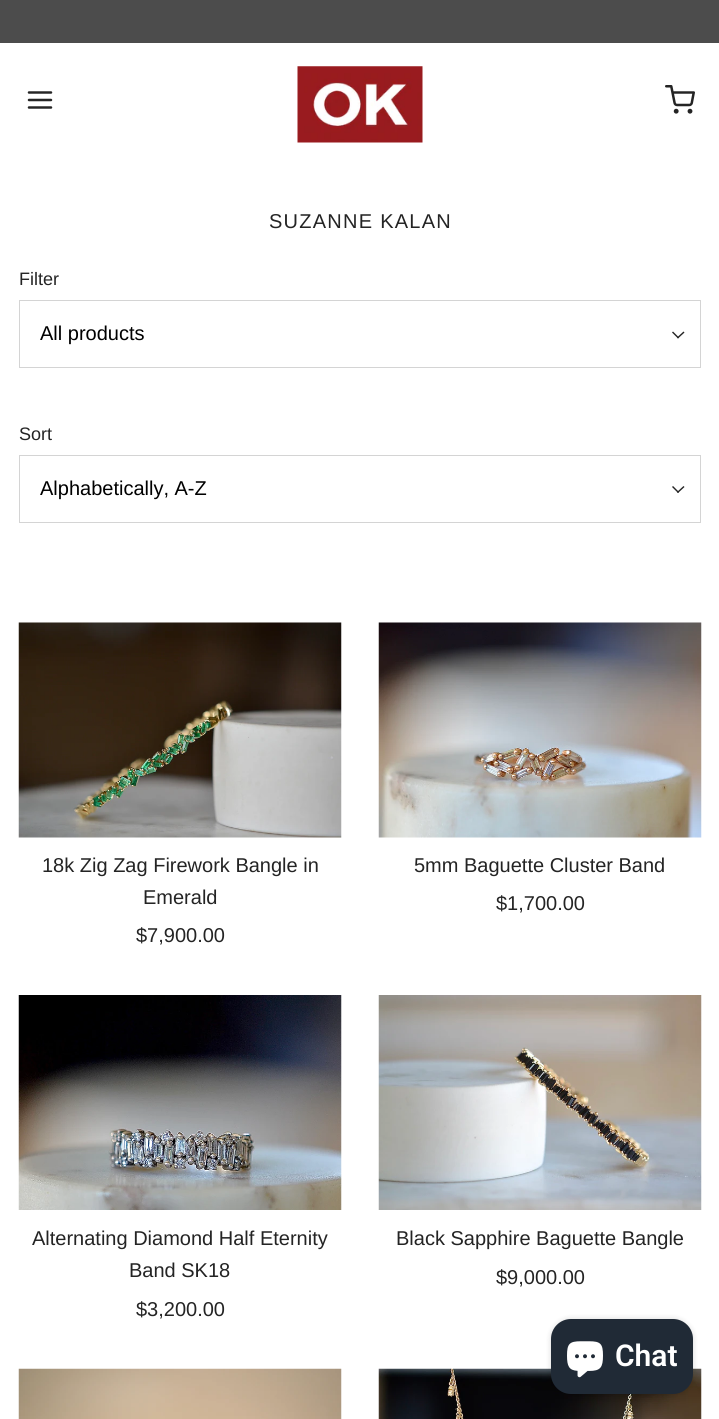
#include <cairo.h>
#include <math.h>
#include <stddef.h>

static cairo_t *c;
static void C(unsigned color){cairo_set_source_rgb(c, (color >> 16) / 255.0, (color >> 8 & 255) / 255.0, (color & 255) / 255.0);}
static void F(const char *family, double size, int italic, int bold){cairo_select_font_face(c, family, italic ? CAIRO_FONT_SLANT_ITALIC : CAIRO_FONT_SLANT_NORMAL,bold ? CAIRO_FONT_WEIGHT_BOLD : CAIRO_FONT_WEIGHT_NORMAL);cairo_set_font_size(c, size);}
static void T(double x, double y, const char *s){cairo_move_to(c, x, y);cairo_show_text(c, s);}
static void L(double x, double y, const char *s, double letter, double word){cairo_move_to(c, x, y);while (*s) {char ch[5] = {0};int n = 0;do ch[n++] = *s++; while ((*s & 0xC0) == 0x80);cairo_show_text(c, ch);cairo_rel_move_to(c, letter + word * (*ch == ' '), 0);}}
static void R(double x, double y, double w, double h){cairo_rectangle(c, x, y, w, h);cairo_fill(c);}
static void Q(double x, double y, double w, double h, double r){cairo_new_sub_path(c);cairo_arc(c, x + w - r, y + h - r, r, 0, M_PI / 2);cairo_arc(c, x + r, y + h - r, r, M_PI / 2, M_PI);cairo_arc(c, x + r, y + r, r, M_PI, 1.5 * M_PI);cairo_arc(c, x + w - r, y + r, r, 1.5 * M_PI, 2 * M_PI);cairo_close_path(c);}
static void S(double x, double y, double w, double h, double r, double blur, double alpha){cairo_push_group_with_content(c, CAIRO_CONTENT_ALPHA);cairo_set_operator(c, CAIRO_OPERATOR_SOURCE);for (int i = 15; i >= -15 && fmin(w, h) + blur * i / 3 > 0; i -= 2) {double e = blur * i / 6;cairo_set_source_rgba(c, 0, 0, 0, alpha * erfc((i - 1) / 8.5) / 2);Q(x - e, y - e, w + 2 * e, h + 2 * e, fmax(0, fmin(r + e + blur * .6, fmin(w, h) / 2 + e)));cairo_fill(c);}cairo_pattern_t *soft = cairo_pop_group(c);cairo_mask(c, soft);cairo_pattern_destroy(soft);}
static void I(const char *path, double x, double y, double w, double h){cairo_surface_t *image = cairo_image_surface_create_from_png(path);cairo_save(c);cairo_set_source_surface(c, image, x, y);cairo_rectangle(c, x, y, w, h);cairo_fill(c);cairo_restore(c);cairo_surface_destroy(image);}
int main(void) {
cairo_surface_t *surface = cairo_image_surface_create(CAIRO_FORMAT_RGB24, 719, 1419);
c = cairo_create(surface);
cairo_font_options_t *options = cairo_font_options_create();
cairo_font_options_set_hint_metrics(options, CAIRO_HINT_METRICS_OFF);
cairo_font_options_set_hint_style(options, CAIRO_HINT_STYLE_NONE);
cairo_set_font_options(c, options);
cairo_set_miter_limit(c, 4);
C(0xffffff);
cairo_paint(c);
C(0x4c4c4c);
R(0,0,719,43);
cairo_new_path(c);
cairo_move_to(c,29,100);
cairo_line_to(c,51,100);
cairo_move_to(c,29,92.5);
cairo_line_to(c,51,92.5);
cairo_move_to(c,29,107.5);
cairo_line_to(c,51,107.5);
C(0x242424);
cairo_set_line_width(c,2.5);
cairo_set_line_cap(c,CAIRO_LINE_CAP_ROUND);
cairo_set_line_join(c,CAIRO_LINE_JOIN_ROUND);
cairo_stroke(c);
I("1.png",297,66,126,77);
I("2.png",665,85,30,29);
F("Arimo",20,0,0);
L(269,228,"SUZANNE KALAN",1.25,0);
F("Arimo",18,0,0);
T(19,285,"Filter");
cairo_rectangle(c,19.5,300.5,681,67);
C(0xd4d4d4);
cairo_set_line_width(c,1);
cairo_set_line_cap(c,CAIRO_LINE_CAP_BUTT);
cairo_set_line_join(c,CAIRO_LINE_JOIN_MITER);
cairo_stroke(c);
F("Arimo",20,0,0);
C(0x000000);
T(40,340,"All products");
C(0x242424);
cairo_new_path(c);
cairo_move_to(c,683.5,331.5);
cairo_line_to(c,684.5,332.5);
cairo_line_to(c,678,338.5);
cairo_line_to(c,677,337.5);
cairo_close_path(c);
cairo_fill(c);
cairo_new_path(c);
cairo_move_to(c,673,331.5);
cairo_line_to(c,679,337.5);
cairo_line_to(c,678,338.5);
cairo_line_to(c,672,332.5);
cairo_close_path(c);
cairo_fill(c);
F("Arimo",18,0,0);
T(19,440,"Sort");
cairo_rectangle(c,19.5,455.5,681,67);
C(0xd4d4d4);
cairo_stroke(c);
F("Arimo",20,0,0);
C(0x000000);
T(40,495,"Alphabetically, A-Z");
C(0x242424);
cairo_new_path(c);
cairo_move_to(c,683.5,486);
cairo_line_to(c,684.5,487);
cairo_line_to(c,678,493);
cairo_line_to(c,677,492);
cairo_close_path(c);
cairo_fill(c);
cairo_new_path(c);
cairo_move_to(c,673,486);
cairo_line_to(c,679,492);
cairo_line_to(c,678,493);
cairo_line_to(c,672,487);
cairo_close_path(c);
cairo_fill(c);
I("3.png",18,622,324,216);
T(42,872,"18k Zig Zag Firework Bangle in");
T(143,904,"Emerald");
T(136,942,"$7,900.00");
I("4.png",378,622,324,216);
T(414,872,"5mm Baguette Cluster Band");
T(496,910,"$1,700.00");
I("5.png",18,995,324,215);
T(32,1245,"Alternating Diamond Half Eternity");
T(129,1277,"Band SK18");
T(136,1316,"$3,200.00");
I("6.png",378,995,324,215);
T(396,1245,"Black Sapphire Baguette Bangle");
T(496,1284,"$9,000.00");
I("7.png",18,1368,324,51);
I("8.png",378,1368,324,51);
C(0x000000);
S(551,1319,142,75,20,3,.15);
C(0x202a36);
Q(551,1319,142,75,20);
cairo_fill(c);
I("9.png",567,1341,36,37);
F("Roboto SemiBold",30,0,0);
C(0xffffff);
T(615,1366,"Chat");
cairo_surface_write_to_png(surface, "o.png");
cairo_font_options_destroy(options);
cairo_destroy(c);
cairo_surface_destroy(surface);
return 0;
}
